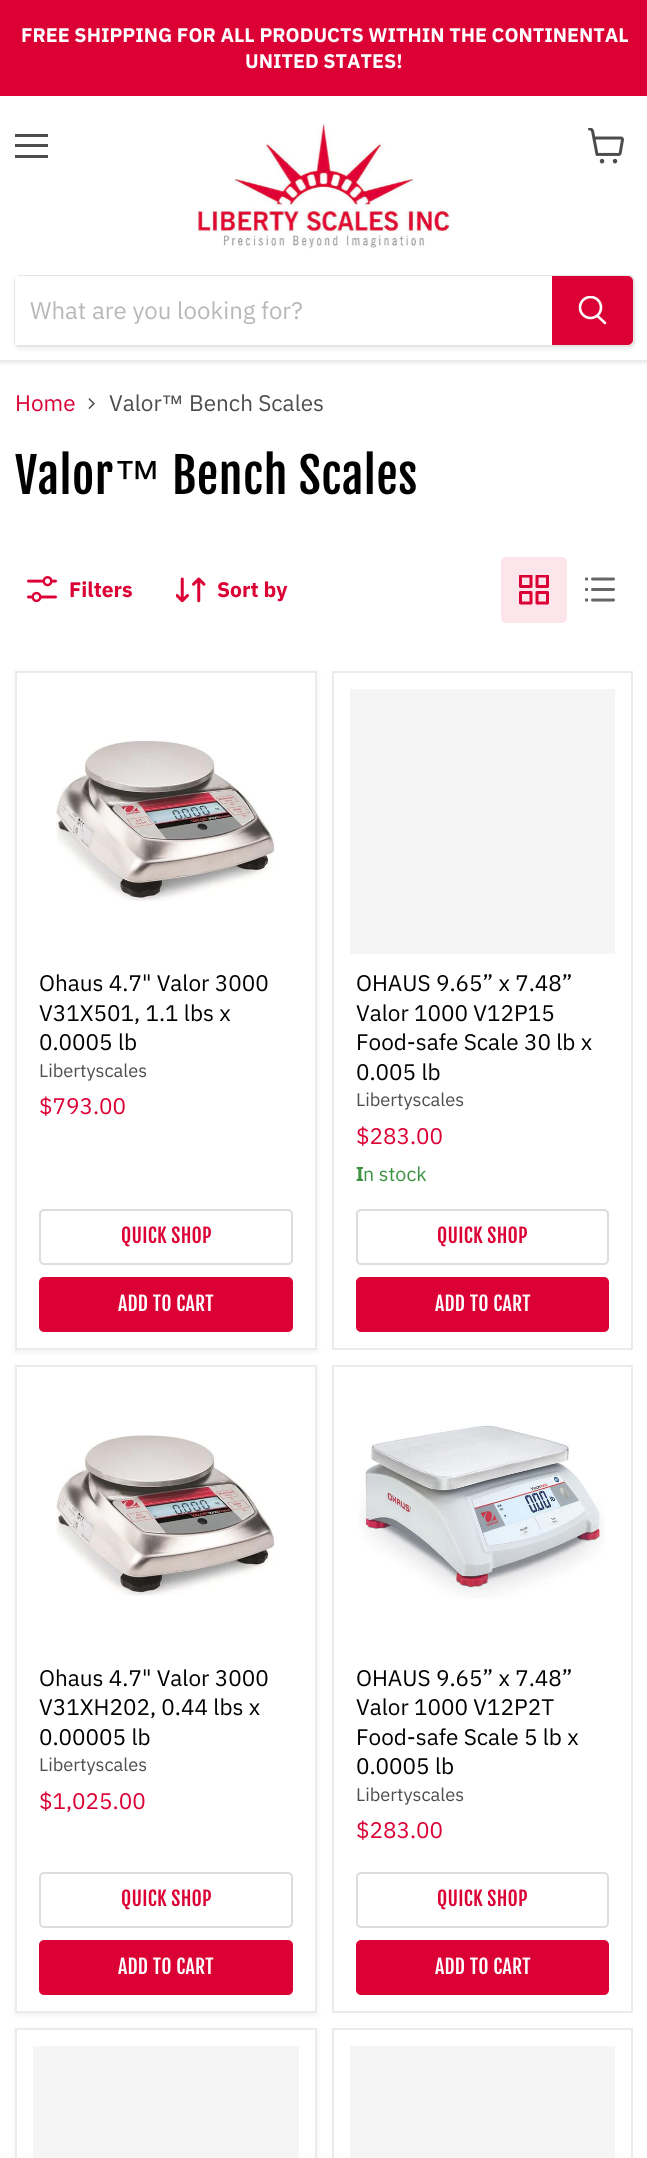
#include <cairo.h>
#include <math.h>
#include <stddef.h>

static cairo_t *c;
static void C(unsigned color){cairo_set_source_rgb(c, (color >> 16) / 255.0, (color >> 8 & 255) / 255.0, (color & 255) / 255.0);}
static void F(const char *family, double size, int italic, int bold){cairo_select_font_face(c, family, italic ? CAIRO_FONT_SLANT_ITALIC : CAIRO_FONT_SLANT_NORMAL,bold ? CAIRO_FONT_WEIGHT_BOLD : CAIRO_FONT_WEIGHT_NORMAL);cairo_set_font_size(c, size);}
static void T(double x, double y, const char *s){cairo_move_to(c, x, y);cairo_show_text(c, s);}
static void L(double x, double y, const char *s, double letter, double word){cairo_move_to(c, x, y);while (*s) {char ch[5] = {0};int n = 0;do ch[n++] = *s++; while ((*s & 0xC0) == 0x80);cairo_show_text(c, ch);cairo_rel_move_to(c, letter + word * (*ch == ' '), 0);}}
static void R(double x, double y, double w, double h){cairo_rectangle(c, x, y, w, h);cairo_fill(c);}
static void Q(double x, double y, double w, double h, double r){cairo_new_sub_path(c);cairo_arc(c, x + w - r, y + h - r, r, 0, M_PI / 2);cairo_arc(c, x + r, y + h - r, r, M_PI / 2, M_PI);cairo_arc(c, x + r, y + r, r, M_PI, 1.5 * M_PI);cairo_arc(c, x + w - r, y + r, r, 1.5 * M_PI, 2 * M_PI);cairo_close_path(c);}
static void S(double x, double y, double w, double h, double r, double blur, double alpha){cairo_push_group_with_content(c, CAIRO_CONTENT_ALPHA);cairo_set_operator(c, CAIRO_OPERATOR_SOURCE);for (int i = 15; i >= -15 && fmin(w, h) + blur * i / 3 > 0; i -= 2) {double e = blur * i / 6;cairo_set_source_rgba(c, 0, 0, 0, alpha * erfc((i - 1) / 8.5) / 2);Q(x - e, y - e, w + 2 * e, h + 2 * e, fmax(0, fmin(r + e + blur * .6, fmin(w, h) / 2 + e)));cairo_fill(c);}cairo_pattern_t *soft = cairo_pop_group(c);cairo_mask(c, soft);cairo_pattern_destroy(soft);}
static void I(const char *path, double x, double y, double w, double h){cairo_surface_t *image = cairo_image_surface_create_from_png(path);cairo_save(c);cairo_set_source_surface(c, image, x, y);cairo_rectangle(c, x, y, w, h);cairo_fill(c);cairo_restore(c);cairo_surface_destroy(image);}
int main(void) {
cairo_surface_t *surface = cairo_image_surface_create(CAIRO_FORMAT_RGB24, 647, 2158);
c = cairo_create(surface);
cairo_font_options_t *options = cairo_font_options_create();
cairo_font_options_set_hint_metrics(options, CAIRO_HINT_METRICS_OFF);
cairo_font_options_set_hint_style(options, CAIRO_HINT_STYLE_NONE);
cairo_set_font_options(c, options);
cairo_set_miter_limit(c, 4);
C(0xffffff);
cairo_paint(c);
cairo_save(c);
cairo_rectangle(c,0,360,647,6);
cairo_clip(c);
C(0x808080);
S(0,98,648,264,0,3,.25);
cairo_restore(c);
C(0xdc0135);
R(0,0,647,96);
F("IBM Plex Sans",19.7,0,1);
C(0xffffff);
T(21,42,"FREE SHIPPING FOR ALL PRODUCTS WITHIN THE CONTINENTAL");
T(245,68,"UNITED STATES!");
C(0x4d4d4d);
R(15,134,33,3);
R(15,144,33,3);
R(15,155,33,3);
I("1.png",588,128,36,36);
I("2.png",198,121,252,128);
cairo_save(c);
cairo_set_fill_rule(c,CAIRO_FILL_RULE_EVEN_ODD);
cairo_new_path(c);
cairo_move_to(c,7,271);
cairo_line_to(c,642,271);
cairo_line_to(c,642,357);
cairo_line_to(c,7,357);
cairo_close_path(c);
cairo_move_to(c,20,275);
cairo_line_to(c,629,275);
cairo_curve_to(c,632.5,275,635,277.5,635,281);
cairo_line_to(c,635,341);
cairo_curve_to(c,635,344.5,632.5,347,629,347);
cairo_line_to(c,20,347);
cairo_curve_to(c,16.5,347,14,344.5,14,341);
cairo_line_to(c,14,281);
cairo_curve_to(c,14,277.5,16.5,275,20,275);
cairo_close_path(c);
cairo_clip(c);
C(0x808080);
S(14,278,621,72,6,2,.11);
cairo_restore(c);
Q(15,276,619,70,5);
cairo_set_source_rgba(c,0.502,0.502,0.502,0.2);
cairo_stroke(c);
C(0xffffff);
R(15,276,537,69);
F("IBM Plex Sans",24,0,0);
C(0xb8b8b8);
T(30,319,"What are you looking for?");
C(0xdc0135);
cairo_new_path(c);
cairo_move_to(c,553,277);
cairo_line_to(c,628,277);
cairo_curve_to(c,630,277,632,279,632,281);
cairo_line_to(c,632,340);
cairo_curve_to(c,632,342,630,344,628,344);
cairo_line_to(c,553,344);
cairo_close_path(c);
cairo_fill_preserve(c);
cairo_stroke(c);
cairo_new_path(c);
cairo_move_to(c,605,323);
cairo_line_to(c,597.5,316);
C(0xffffff);
cairo_set_line_width(c,2.6);
cairo_set_line_cap(c,CAIRO_LINE_CAP_ROUND);
cairo_stroke(c);
cairo_save(c);
cairo_rectangle(c,578,296,30,31);
cairo_clip(c);
cairo_arc(c,590.5,307.5,10.5,0,2 * M_PI);
cairo_set_line_cap(c,CAIRO_LINE_CAP_BUTT);
cairo_stroke(c);
cairo_restore(c);
F("IBM Plex Sans",22.5,0,0);
C(0xdc0135);
T(15,411,"Home");
I("3.png",88,398,7,11);
C(0x4d4d4d);
T(109,411,"Valor");
F("Liberation Sans",22.5,0,0);
T(161,411,"™");
F("IBM Plex Sans",22.5,0,0);
T(189,411,"Bench Scales");
F("Fjalla One",48,0,0);
C(0x000000);
L(15,494,"Valor",.5,0);
F("Liberation Sans",48,0,0);
L(113,494,"™",.5,0);
F("Fjalla One",48,0,0);
L(172,494,"Bench Scales",.5,0);
I("4.png",27,576,30,27);
F("IBM Plex Sans",21,0,1);
C(0xdc0135);
T(69,597,"Filters");
I("5.png",176,577,30,26);
T(217,597,"Sort by");
C(0xfce6eb);
Q(501,557,66,66,5);
cairo_fill(c);
I("6.png",519,575,30,30);
I("7.png",585,577,30,25);
C(0x808080);
S(15,672,302,680,0,3,.11);
C(0xffffff);
cairo_rectangle(c,16,672,300,677);
cairo_fill_preserve(c);
C(0xebebeb);
cairo_set_line_width(c,2);
cairo_set_line_cap(c,CAIRO_LINE_CAP_BUTT);
cairo_stroke(c);
I("8.png",56,740,219,161);
F("IBM Plex Sans",22.5,0,0);
C(0x000000);
T(39,991,"Ohaus 4.7\" Valor 3000");
T(39,1021,"V31X501, 1.1 lbs x");
T(39,1050,"0.0005 lb");
F("IBM Plex Sans",18.25,0,0);
C(0x4d4d4d);
T(39,1077,"Libertyscales");
F("IBM Plex Sans",22.5,0,0);
C(0xdc0135);
T(39,1114,"$793.00");
Q(40,1210,252,54,4);
C(0xdddddd);
cairo_stroke(c);
F("Fjalla One",19.7,0,0);
C(0xdc0135);
L(121,1243,"QUICK SHOP",.25,0);
Q(40,1278,252,53,4);
cairo_fill_preserve(c);
cairo_stroke(c);
C(0xffffff);
L(118,1311,"ADD TO CART",.25,0);
cairo_rectangle(c,333,672,299,677);
C(0xebebeb);
cairo_stroke(c);
C(0xf5f5f5);
R(350,689,265,265);
F("IBM Plex Sans",22.5,0,0);
C(0x000000);
T(356,991,"OHAUS 9.65” x 7.48”");
T(356,1021,"Valor 1000 V12P15");
T(356,1050,"Food-safe Scale 30 lb x");
T(356,1080,"0.005 lb");
F("IBM Plex Sans",18.25,0,0);
C(0x4d4d4d);
T(356,1106,"Libertyscales");
F("IBM Plex Sans",22.5,0,0);
C(0xdc0135);
T(356,1144,"$283.00");
F("Noto Sans",19.7,0,1);
C(0x3c9342);
T(356,1181,"I");
F("IBM Plex Sans",19.7,0,0);
T(363,1181,"n stock");
Q(357,1210,251,54,4);
C(0xdddddd);
cairo_stroke(c);
F("Fjalla One",19.7,0,0);
C(0xdc0135);
L(437,1243,"QUICK SHOP",.25,0);
Q(357,1278,251,53,4);
cairo_fill_preserve(c);
cairo_stroke(c);
C(0xffffff);
L(435,1311,"ADD TO CART",.25,0);
C(0x808080);
S(15,1367,302,648,0,3,.11);
C(0xffffff);
cairo_rectangle(c,16,1366,300,646);
cairo_fill_preserve(c);
C(0xebebeb);
cairo_stroke(c);
I("9.png",56,1435,219,161);
F("IBM Plex Sans",22.5,0,0);
C(0x000000);
T(39,1686,"Ohaus 4.7\" Valor 3000");
T(39,1715,"V31XH202, 0.44 lbs x");
T(39,1745,"0.00005 lb");
F("IBM Plex Sans",18.25,0,0);
C(0x4d4d4d);
T(39,1771,"Libertyscales");
F("IBM Plex Sans",22.5,0,0);
C(0xdc0135);
T(39,1809,"$1,025.00");
Q(40,1873,252,54,4);
C(0xdddddd);
cairo_stroke(c);
F("Fjalla One",19.7,0,0);
C(0xdc0135);
L(121,1906,"QUICK SHOP",.25,0);
Q(40,1941,252,53,4);
cairo_fill_preserve(c);
cairo_stroke(c);
C(0xffffff);
L(118,1974,"ADD TO CART",.25,0);
cairo_rectangle(c,333,1366,299,646);
C(0xebebeb);
cairo_stroke(c);
I("10.png",359,1425,246,174);
F("IBM Plex Sans",22.5,0,0);
C(0x000000);
T(356,1686,"OHAUS 9.65” x 7.48”");
T(356,1715,"Valor 1000 V12P2T");
T(356,1745,"Food-safe Scale 5 lb x");
T(356,1774,"0.0005 lb");
F("IBM Plex Sans",18.25,0,0);
C(0x4d4d4d);
T(356,1801,"Libertyscales");
F("IBM Plex Sans",22.5,0,0);
C(0xdc0135);
T(356,1838,"$283.00");
Q(357,1873,251,54,4);
C(0xdddddd);
cairo_stroke(c);
F("Fjalla One",19.7,0,0);
C(0xdc0135);
L(437,1906,"QUICK SHOP",.25,0);
Q(357,1941,251,53,4);
cairo_fill_preserve(c);
cairo_stroke(c);
C(0xffffff);
L(435,1974,"ADD TO CART",.25,0);
C(0x808080);
S(15,2030,302,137,0,3,.11);
C(0xffffff);
cairo_rectangle(c,16,2029,300,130);
cairo_fill_preserve(c);
C(0xebebeb);
cairo_stroke(c);
C(0xf5f5f5);
R(33,2046,266,112);
cairo_rectangle(c,333,2029,299,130);
C(0xebebeb);
cairo_stroke(c);
C(0xf5f5f5);
R(350,2046,265,112);
cairo_surface_write_to_png(surface, "o.png");
cairo_font_options_destroy(options);
cairo_destroy(c);
cairo_surface_destroy(surface);
return 0;
}
